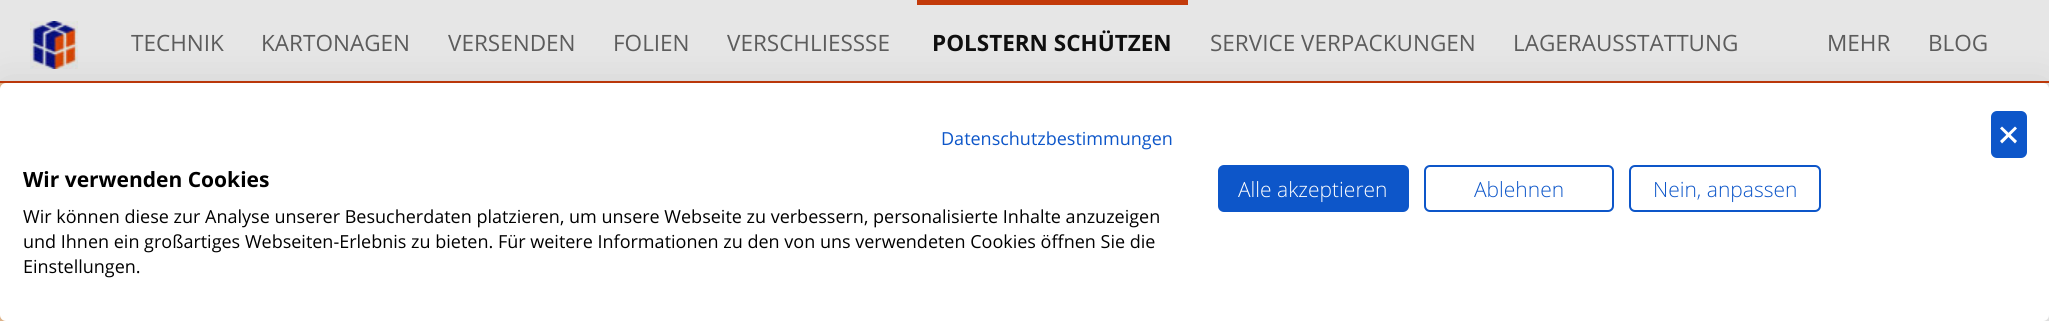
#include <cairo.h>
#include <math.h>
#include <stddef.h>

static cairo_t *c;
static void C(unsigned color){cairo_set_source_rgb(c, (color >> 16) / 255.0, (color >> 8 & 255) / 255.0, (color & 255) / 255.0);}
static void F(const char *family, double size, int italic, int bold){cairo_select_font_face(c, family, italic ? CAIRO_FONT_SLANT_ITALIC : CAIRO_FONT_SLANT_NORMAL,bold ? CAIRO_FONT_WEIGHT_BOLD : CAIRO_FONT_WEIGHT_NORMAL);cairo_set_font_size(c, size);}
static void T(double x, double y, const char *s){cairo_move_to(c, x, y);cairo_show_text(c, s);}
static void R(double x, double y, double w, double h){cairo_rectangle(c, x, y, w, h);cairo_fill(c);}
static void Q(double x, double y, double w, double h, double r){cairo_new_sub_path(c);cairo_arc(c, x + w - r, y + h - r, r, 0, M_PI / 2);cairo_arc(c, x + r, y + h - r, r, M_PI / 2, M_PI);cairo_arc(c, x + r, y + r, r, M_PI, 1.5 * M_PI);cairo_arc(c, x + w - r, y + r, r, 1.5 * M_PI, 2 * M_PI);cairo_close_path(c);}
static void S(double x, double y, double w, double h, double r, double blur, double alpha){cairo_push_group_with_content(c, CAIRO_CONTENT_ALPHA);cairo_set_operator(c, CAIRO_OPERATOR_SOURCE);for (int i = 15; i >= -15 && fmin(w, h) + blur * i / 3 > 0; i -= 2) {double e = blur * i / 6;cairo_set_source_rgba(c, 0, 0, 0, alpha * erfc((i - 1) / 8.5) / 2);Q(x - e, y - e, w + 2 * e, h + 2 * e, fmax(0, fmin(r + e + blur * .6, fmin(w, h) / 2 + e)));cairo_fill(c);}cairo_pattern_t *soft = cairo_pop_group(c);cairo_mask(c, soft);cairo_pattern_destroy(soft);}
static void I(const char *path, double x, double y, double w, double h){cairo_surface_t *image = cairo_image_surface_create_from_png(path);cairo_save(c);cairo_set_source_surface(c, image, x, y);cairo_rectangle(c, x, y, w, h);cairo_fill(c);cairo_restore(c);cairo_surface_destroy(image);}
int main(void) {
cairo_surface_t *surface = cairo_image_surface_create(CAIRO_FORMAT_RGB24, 2049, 321);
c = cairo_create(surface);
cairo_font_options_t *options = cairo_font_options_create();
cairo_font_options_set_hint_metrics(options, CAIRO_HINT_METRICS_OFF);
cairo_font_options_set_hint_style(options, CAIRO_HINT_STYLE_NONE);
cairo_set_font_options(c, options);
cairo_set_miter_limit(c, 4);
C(0xe6e6e6);
cairo_paint(c);
I("1.png",0,83,6,238);
C(0xc33a0a);
R(0,81,2049,2);
I("2.png",30,21,48,48);
F("Open Sans",22.5,0,0);
C(0x5c5c5c);
T(131,51,"TECHNIK");
T(261,51,"KARTONAGEN");
T(448,51,"VERSENDEN");
T(613,51,"FOLIEN");
T(727,51,"VERSCHLIESSSE");
C(0xc33a0a);
R(917,0,271,5);
F("Open Sans",22.5,0,1);
C(0x0f0f0f);
T(932,51,"POLSTERN SCHÜTZEN");
F("Open Sans",22.5,0,0);
C(0x5c5c5c);
T(1210,51,"SERVICE VERPACKUNGEN");
T(1513,51,"LAGERAUSSTATTUNG");
T(1827,51,"MEHR");
T(1928,51,"BLOG");
C(0x000000);
S(0,83,2049,238,6,18,.1);
C(0xffffff);
Q(0,83,2049,238,6);
cairo_fill(c);
F("Open Sans",18,0,0);
C(0x0d56c9);
T(941,145,"Datenschutzbestimmungen");
Q(1992,112,34,45,5);
cairo_fill_preserve(c);
cairo_stroke(c);
C(0xffffff);
cairo_new_path(c);
cairo_move_to(c,2015,126.5);
cairo_line_to(c,2017,128.5);
cairo_line_to(c,2002,143.5);
cairo_line_to(c,2000,141);
cairo_close_path(c);
cairo_fill(c);
cairo_new_path(c);
cairo_move_to(c,2000,128.5);
cairo_line_to(c,2002,126.5);
cairo_line_to(c,2017,141);
cairo_line_to(c,2015,143.5);
cairo_close_path(c);
cairo_fill(c);
F("Open Sans",21,0,1);
C(0x000000);
T(23,187,"Wir verwenden Cookies");
F("Open Sans",18,0,0);
T(23,223,"Wir können diese zur Analyse unserer Besucherdaten platzieren, um unsere Webseite zu verbessern, personalisierte Inhalte anzuzeigen");
T(23,248,"und Ihnen ein großartiges Webseiten-Erlebnis zu bieten. Für weitere Informationen zu den von uns verwendeten Cookies öffnen Sie die");
T(23,273,"Einstellungen.");
C(0x0d56c9);
Q(1219,166,189,45,5);
cairo_fill_preserve(c);
cairo_stroke(c);
F("Open Sans Light",21,0,0);
C(0xffffff);
T(1238,197,"Alle akzeptieren");
Q(1425,166,188,45,5);
C(0x0d56c9);
cairo_stroke(c);
T(1474,197,"Ablehnen");
Q(1630,166,190,45,5);
cairo_stroke(c);
T(1653,197,"Nein, anpassen");
cairo_surface_write_to_png(surface, "o.png");
cairo_font_options_destroy(options);
cairo_destroy(c);
cairo_surface_destroy(surface);
return 0;
}
